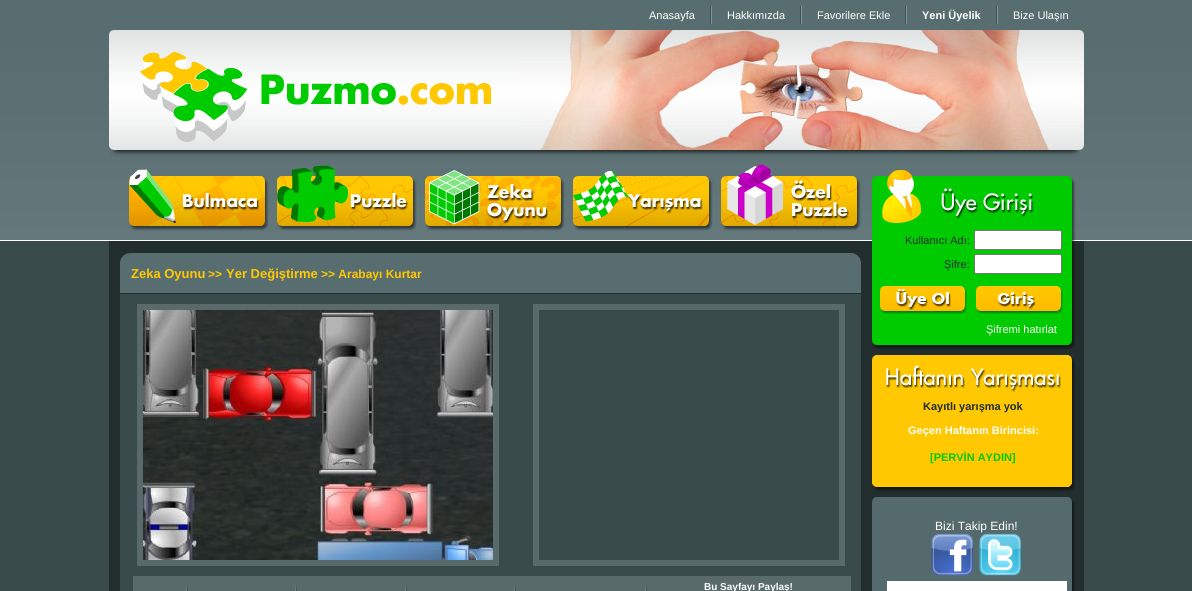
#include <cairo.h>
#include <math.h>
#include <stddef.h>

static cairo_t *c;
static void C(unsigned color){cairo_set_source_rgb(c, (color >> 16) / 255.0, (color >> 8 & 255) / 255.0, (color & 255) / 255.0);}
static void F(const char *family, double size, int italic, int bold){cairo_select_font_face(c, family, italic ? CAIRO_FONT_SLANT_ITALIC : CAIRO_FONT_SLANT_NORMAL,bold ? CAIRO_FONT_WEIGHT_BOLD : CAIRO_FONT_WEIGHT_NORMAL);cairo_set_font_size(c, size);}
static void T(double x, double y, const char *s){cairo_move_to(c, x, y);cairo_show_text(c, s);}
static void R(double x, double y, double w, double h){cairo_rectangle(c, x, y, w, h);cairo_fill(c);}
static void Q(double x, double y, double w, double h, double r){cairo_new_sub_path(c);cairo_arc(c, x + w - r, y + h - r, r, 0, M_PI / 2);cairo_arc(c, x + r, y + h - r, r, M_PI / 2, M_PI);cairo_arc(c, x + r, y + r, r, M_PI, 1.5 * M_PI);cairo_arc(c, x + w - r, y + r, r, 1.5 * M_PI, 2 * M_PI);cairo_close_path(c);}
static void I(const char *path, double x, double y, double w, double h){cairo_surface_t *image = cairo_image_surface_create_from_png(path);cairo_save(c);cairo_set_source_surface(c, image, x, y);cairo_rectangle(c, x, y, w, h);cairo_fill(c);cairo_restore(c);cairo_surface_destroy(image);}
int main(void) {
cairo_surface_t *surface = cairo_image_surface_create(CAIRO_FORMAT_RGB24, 1192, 591);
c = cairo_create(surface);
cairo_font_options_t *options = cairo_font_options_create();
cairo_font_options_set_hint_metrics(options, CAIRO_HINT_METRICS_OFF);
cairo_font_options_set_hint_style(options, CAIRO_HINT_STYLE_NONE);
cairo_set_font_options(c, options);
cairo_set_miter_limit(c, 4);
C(0x384a4a);
cairo_paint(c);
I("1.png",0,0,1192,241);
C(0x425254);
R(710,6,1,18);
F("Liberation Sans",11,0,0);
C(0xffffff);
T(649,19,"Anasayfa");
C(0x425254);
R(800,6,1,18);
C(0x829294);
R(711,6,1,18);
C(0xffffff);
T(727,19,"Hakkımızda");
C(0x425254);
R(905,6,1,18);
C(0x829294);
R(801,6,1,18);
C(0xffffff);
T(817,19,"Favorilere Ekle");
C(0x425254);
R(996,6,1,18);
C(0x829294);
R(906,6,1,18);
F("Liberation Sans",11,0,1);
C(0xffffff);
T(922,19,"Yeni Üyelik");
C(0x829294);
R(997,6,1,18);
F("Liberation Sans",11,0,0);
C(0xffffff);
T(1013,19,"Bize Ulaşın");
I("2.png",109,30,412,120);
I("3.png",521,30,563,120);
I("4.png",110,150,971,26);
C(0x222d2d);
R(109,241,763,350);
I("5.png",109,176,763,65);
I("6.png",129,176,732,55);
I("7.png",129,176,136,50);
I("8.png",277,176,136,50);
I("9.png",425,176,136,50);
I("10.png",573,176,136,50);
I("11.png",721,176,136,50);
I("12.png",120,253,11,40);
C(0x586d70);
R(131,253,719,40);
F("Liberation Sans",13,0,1);
C(0xffc800);
T(131,278,"Zeka Oyunu");
F("Liberation Sans",12,0,1);
T(208,278,">>");
F("Liberation Sans",13,0,1);
T(226,278,"Yer Değiştirme");
F("Liberation Sans",12,0,1);
T(321,278,">> Arabayı Kurtar");
I("13.png",850,253,11,40);
C(0x384a4a);
R(120,294,741,297);
cairo_rectangle(c,140,307,356,256);
C(0x586a6a);
cairo_set_line_width(c,6);
cairo_stroke(c);
I("14.png",143,310,350,250);
cairo_rectangle(c,536,307,306,256);
cairo_stroke(c);
R(133,576,718,15);
I("15.png",186,583,2,8);
I("15.png",295,583,2,8);
I("15.png",405,583,2,8);
I("15.png",514,583,2,8);
I("15.png",645,583,2,8);
F("Liberation Sans",10,0,1);
C(0xffffff);
T(704,590,"Bu Sayfayı Paylaş!");
C(0x222d2d);
R(1075,241,9,350);
I("16.png",872,176,212,50);
I("17.png",872,226,203,114);
I("18.png",1072,226,12,15);
F("Liberation Sans",11,0,0);
T(905,244,"Kullanıcı Adı:");
C(0xffffff);
Q(974.5,230.5,87,19,1.5);
cairo_fill_preserve(c);
C(0x767676);
cairo_set_line_width(c,1);
cairo_stroke(c);
C(0x222d2d);
T(944,268,"Şifre:");
C(0xffffff);
Q(974.5,254.5,87,19,1.5);
cairo_fill_preserve(c);
C(0x767676);
cairo_stroke(c);
I("19.png",880,286,87,28);
I("20.png",976,286,87,28);
C(0xffffff);
T(986,333,"Şifremi hatırlat");
I("21.png",872,340,203,15);
I("22.png",872,392,203,91);
I("23.png",872,355,203,37);
F("Liberation Sans",11,0,1);
C(0x222d2d);
T(923,410,"Kayıtlı yarışma yok");
C(0xffffff);
T(908,434,"Geçen Haftanın Birincisi:");
C(0x00ca00);
T(930,461,"[PERVİN AYDIN]");
I("24.png",872,483,203,14);
I("25.png",872,503,203,88);
I("26.png",872,497,203,6);
F("Liberation Sans",12,0,0);
C(0xffffff);
T(935,530,"Bizi Takip Edin!");
I("27.png",931,533,42,43);
I("28.png",979,533,42,43);
I("29.png",887,581,180,10);
cairo_surface_write_to_png(surface, "o.png");
cairo_font_options_destroy(options);
cairo_destroy(c);
cairo_surface_destroy(surface);
return 0;
}
